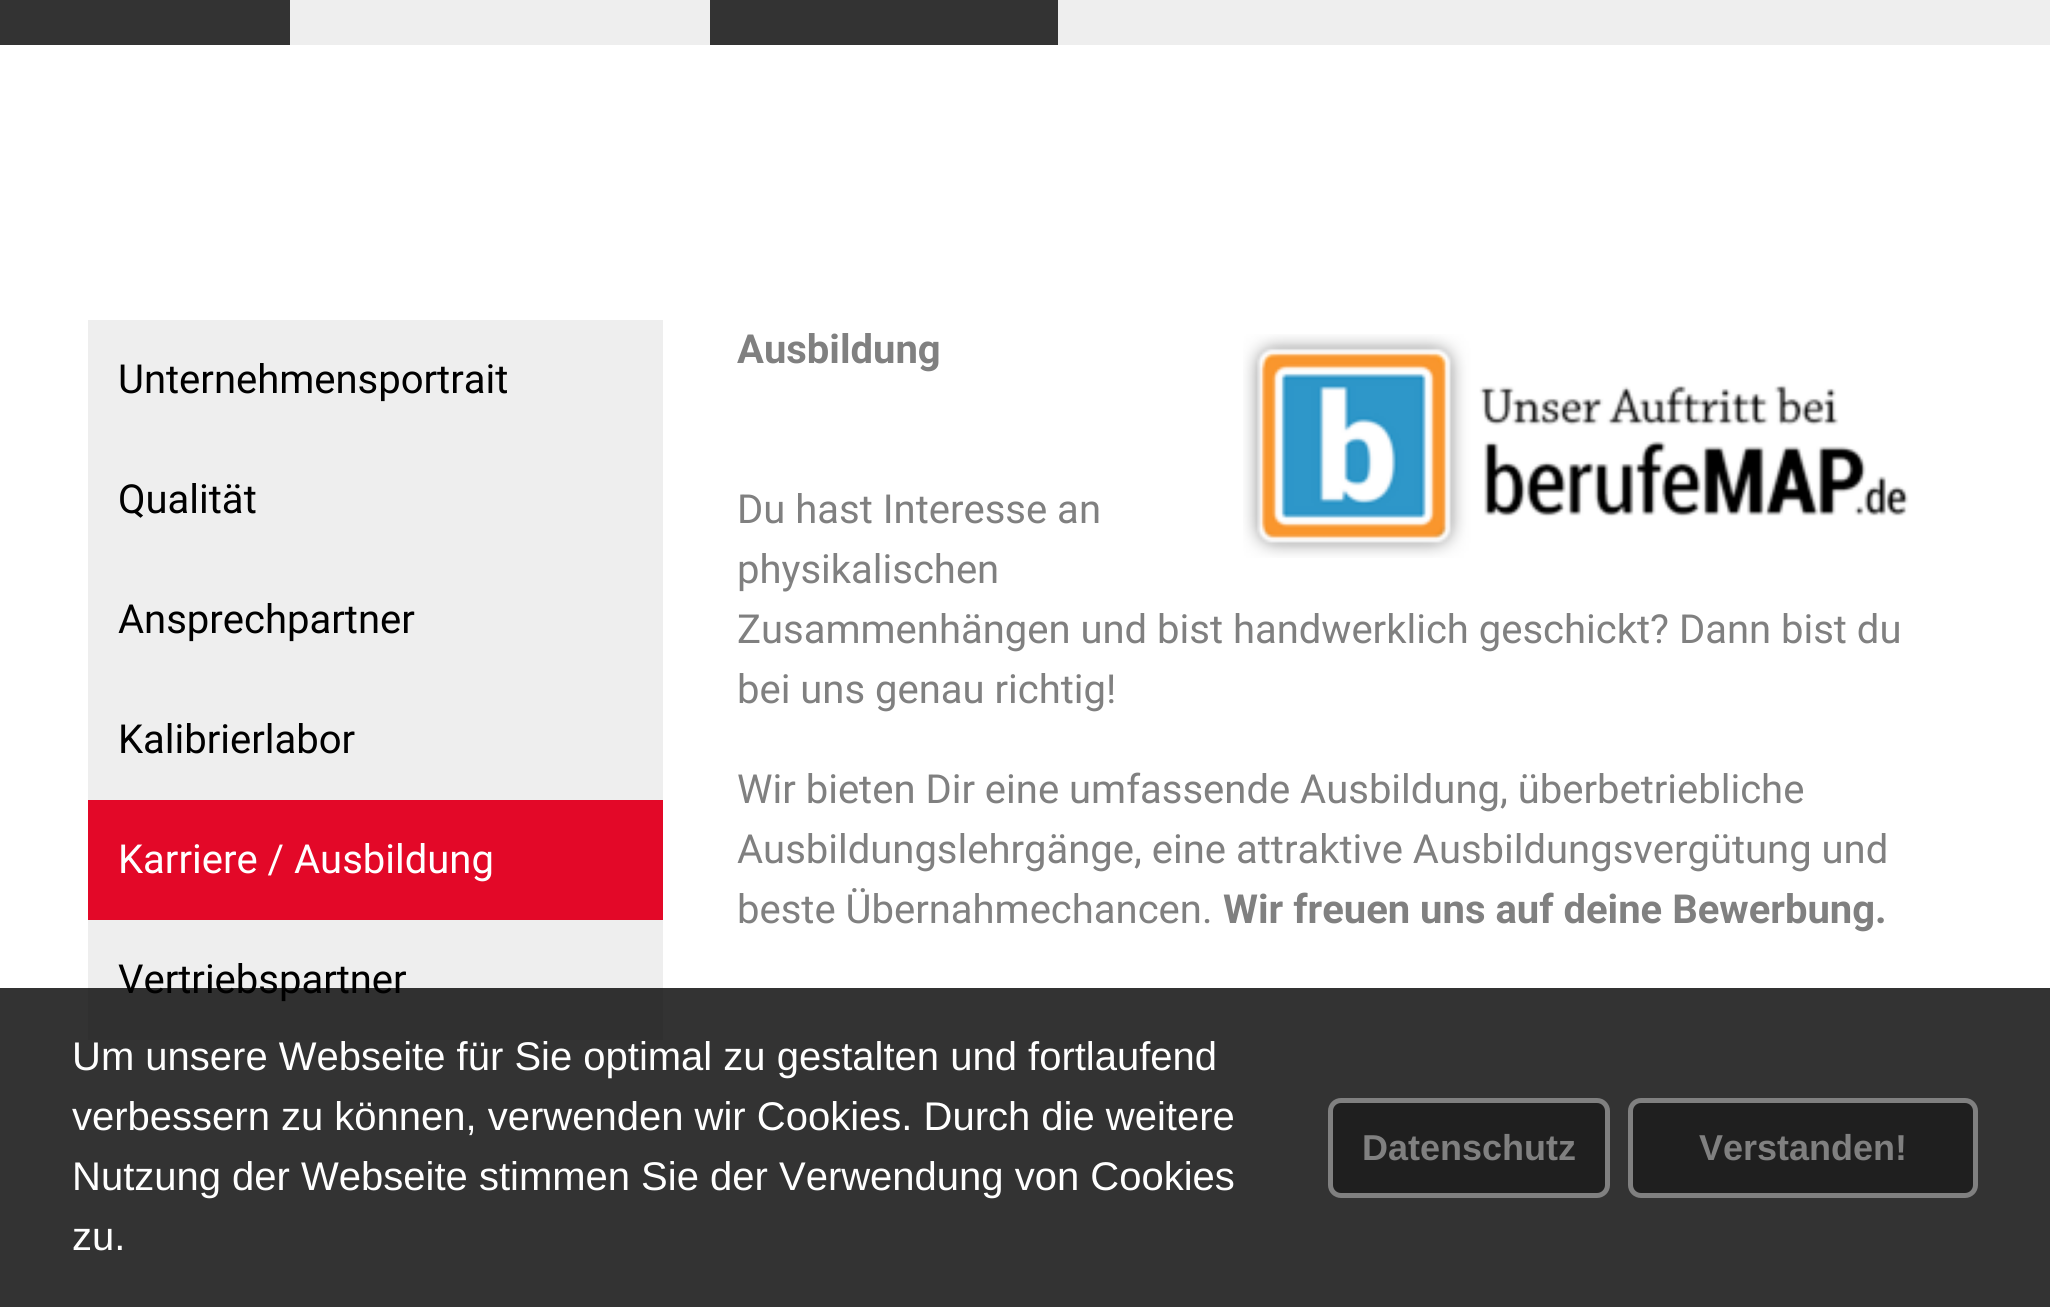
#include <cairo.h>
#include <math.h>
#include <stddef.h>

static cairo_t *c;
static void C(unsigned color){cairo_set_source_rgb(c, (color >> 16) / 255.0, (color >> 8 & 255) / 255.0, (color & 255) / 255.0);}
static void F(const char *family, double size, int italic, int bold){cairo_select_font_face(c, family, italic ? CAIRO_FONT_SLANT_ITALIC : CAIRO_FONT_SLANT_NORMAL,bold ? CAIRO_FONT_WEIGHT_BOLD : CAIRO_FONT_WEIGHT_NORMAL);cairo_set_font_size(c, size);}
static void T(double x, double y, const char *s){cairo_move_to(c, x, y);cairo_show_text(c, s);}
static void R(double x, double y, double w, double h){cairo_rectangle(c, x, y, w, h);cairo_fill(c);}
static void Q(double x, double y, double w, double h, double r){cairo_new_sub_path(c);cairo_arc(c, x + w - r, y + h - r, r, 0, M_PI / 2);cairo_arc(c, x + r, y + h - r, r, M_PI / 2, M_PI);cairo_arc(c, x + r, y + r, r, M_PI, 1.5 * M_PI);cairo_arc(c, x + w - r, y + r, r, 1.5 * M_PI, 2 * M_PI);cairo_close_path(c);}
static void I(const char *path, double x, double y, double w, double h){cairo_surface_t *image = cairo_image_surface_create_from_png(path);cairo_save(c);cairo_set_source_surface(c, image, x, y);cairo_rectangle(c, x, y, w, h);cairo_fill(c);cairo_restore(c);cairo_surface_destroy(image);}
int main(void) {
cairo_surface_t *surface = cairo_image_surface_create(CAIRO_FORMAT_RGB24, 2050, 1307);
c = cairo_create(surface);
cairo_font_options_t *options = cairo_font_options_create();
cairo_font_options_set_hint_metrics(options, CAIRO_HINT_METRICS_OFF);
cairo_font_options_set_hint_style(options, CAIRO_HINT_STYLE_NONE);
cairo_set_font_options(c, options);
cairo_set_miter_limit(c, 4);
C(0xffffff);
cairo_paint(c);
C(0xeeeeee);
R(290,0,1760,45);
C(0x333333);
R(0,0,290,45);
R(710,0,348,45);
C(0xeeeeee);
R(88,320,575,480);
F("Roboto",40,0,0);
C(0x000000);
T(118,393,"Unternehmensportrait");
T(118,513,"Qualität");
T(118,633,"Ansprechpartner");
T(118,753,"Kalibrierlabor");
C(0xe30828);
R(88,800,575,120);
C(0xffffff);
T(118,873,"Karriere / Ausbildung");
C(0xeeeeee);
R(88,920,575,120);
C(0x000000);
T(118,993,"Vertriebspartner");
F("Roboto",40,0,1);
C(0x808080);
T(737,363,"Ausbildung");
F("Roboto",40,0,0);
T(737,523,"Du hast Interesse an");
T(737,583,"physikalischen");
T(737,643,"Zusammenhängen und bist handwerklich geschickt? Dann bist du");
T(737,703,"bei uns genau richtig!");
T(737,803,"Wir bieten Dir eine umfassende Ausbildung, überbetriebliche");
T(737,863,"Ausbildungslehrgänge, eine attraktive Ausbildungsvergütung und");
T(737,923,"beste Übernahmechancen.");
F("Roboto",40,0,1);
T(1223,923,"Wir freuen uns auf deine Bewerbung.");
I("1.png",1243,334,666,224);
cairo_set_source_rgba(c,0,0,0,0.8);
R(0,988,2050,319);
F("Liberation Sans",40,0,0);
C(0xffffff);
T(72,1070,"Um unsere Webseite für Sie optimal zu gestalten und fortlaufend");
T(72,1130,"verbessern zu können, verwenden wir Cookies. Durch die weitere");
T(72,1190,"Nutzung der Webseite stimmen Sie der Verwendung von Cookies");
T(72,1250,"zu.");
C(0x1f1f1f);
Q(1330.5,1100.5,277,95,10.5);
cairo_fill_preserve(c);
C(0x808080);
cairo_set_line_width(c,5);
cairo_stroke(c);
F("Liberation Sans",36,0,1);
T(1362,1160,"Datenschutz");
C(0x1f1f1f);
Q(1630.5,1100.5,345,95,10.5);
cairo_fill_preserve(c);
C(0x808080);
cairo_stroke(c);
T(1699,1160,"Verstanden!");
cairo_surface_write_to_png(surface, "o.png");
cairo_font_options_destroy(options);
cairo_destroy(c);
cairo_surface_destroy(surface);
return 0;
}
